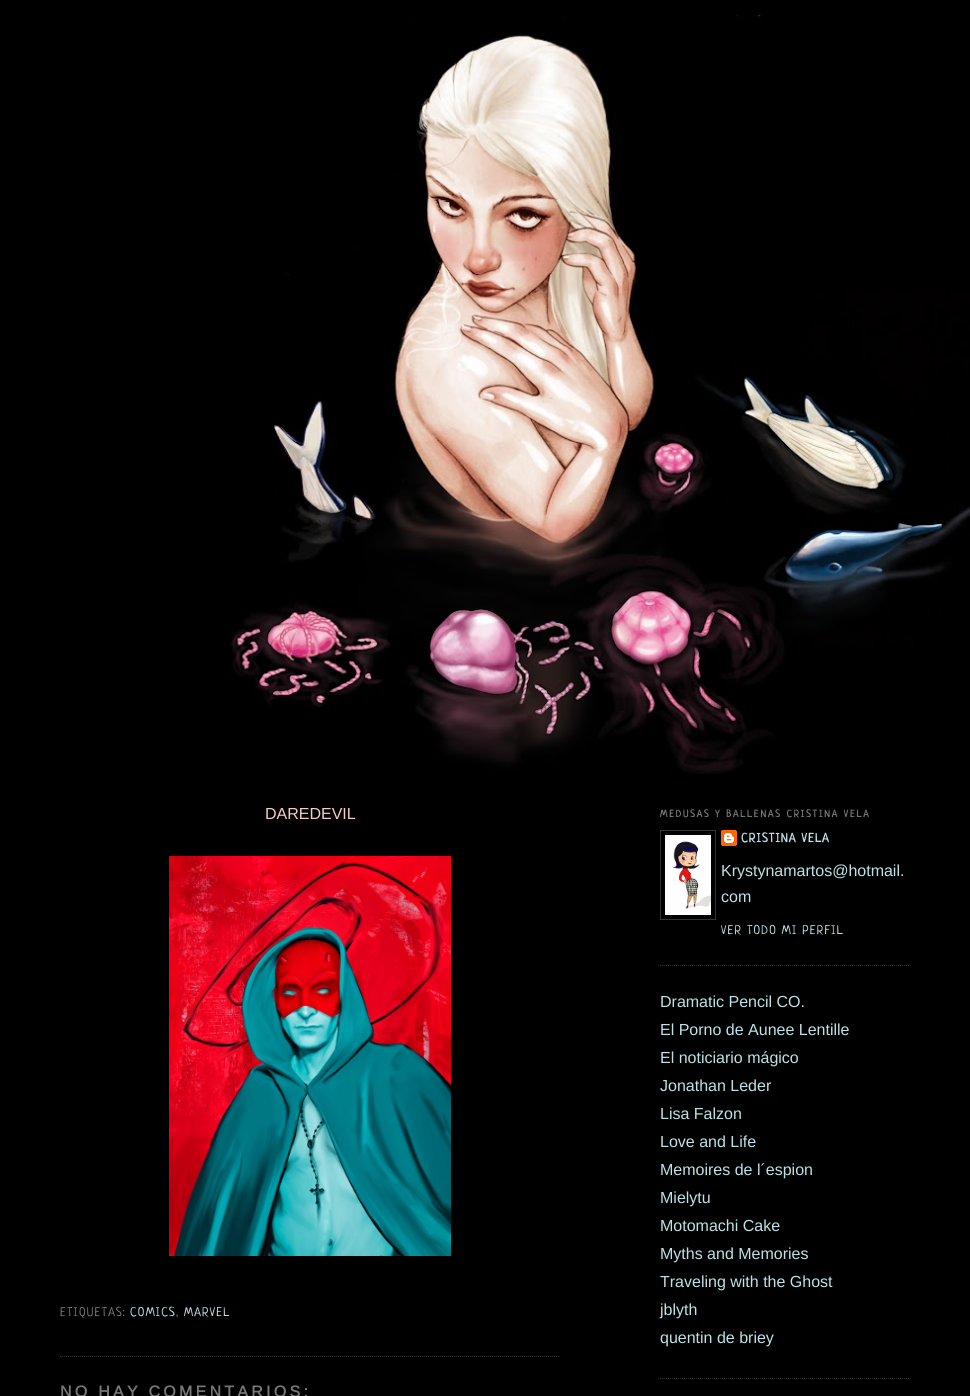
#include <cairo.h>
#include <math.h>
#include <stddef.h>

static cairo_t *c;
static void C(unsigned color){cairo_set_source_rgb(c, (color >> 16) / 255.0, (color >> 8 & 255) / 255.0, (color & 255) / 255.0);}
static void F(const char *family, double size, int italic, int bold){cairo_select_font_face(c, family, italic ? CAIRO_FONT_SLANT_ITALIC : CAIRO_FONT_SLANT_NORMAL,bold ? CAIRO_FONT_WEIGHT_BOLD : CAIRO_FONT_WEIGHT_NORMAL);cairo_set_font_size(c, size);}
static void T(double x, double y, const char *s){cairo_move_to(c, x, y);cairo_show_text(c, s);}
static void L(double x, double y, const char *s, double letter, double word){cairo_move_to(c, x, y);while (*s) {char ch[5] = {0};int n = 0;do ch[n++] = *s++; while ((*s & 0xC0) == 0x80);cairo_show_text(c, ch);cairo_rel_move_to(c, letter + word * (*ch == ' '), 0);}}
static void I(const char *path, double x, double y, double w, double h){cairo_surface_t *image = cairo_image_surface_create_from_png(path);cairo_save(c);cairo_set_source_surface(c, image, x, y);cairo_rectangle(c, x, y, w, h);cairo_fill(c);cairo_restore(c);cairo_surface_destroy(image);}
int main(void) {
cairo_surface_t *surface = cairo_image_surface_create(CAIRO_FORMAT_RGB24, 970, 1396);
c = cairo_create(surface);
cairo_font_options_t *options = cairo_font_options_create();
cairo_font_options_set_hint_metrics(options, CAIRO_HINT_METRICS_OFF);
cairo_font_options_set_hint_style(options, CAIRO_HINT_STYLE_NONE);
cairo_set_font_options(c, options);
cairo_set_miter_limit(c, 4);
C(0x000000);
cairo_paint(c);
I("1.png",227,15,743,759);
cairo_new_path(c);
cairo_move_to(c,60,1356.5);
cairo_line_to(c,560,1356.5);
C(0x333333);
cairo_set_line_width(c,1);
cairo_set_dash(c,(double[]){1,1},2,0);
cairo_stroke(c);
F("Arimo",16,0,0);
C(0xf4cccc);
T(265,819,"DAREDEVIL");
I("2.png",169,856,282,400);
F("Neucha",12.5,0,0);
C(0x777777);
L(60,1316,"ETIQUETAS:",1.25,0);
C(0xbde2e7);
L(130,1316,"COMICS",1.25,0);
C(0x777777);
L(176,1316,",",1.25,0);
C(0xbde2e7);
L(184,1316,"MARVEL",1.25,0);
F("Arimo",16,0,1);
C(0x777777);
L(60,1397,"NO HAY COMENTARIOS:",3.25,0);
cairo_new_path(c);
cairo_move_to(c,660,965.5);
cairo_line_to(c,910,965.5);
C(0x333333);
cairo_stroke(c);
F("Neucha",10,0,1);
C(0x777777);
L(660,817,"MEDUSAS Y BALLENAS CRISTINA VELA",2,0);
cairo_rectangle(c,660.5,830.5,55,89);
C(0x333333);
cairo_set_dash(c,NULL,0,0);
cairo_stroke(c);
I("3.png",665,835,46,80);
I("4.png",721,830,16,16);
F("Neucha",12.5,0,1);
C(0xbde2e7);
L(741,842,"CRISTINA VELA",1.25,0);
F("Arimo",16,0,0);
T(721,876,"Krystynamartos@hotmail.");
T(721,902,"com");
F("Neucha",12.5,0,0);
L(721,934,"VER TODO MI PERFIL",1.25,0);
cairo_new_path(c);
cairo_move_to(c,660,1378.5);
cairo_line_to(c,910,1378.5);
C(0x333333);
cairo_set_dash(c,(double[]){1,1},2,0);
cairo_stroke(c);
F("Arimo",16,0,0);
C(0xbde2e7);
T(660,1007,"Dramatic Pencil CO.");
T(660,1035,"El Porno de Aunee Lentille");
T(660,1063,"El noticiario mágico");
T(660,1091,"Jonathan Leder");
T(660,1119,"Lisa Falzon");
T(660,1147,"Love and Life");
T(660,1175,"Memoires de l´espion");
T(660,1203,"Mielytu");
T(660,1231,"Motomachi Cake");
T(660,1259,"Myths and Memories");
T(660,1287,"Traveling with the Ghost");
T(660,1315,"jblyth");
T(660,1343,"quentin de briey");
cairo_surface_write_to_png(surface, "o.png");
cairo_font_options_destroy(options);
cairo_destroy(c);
cairo_surface_destroy(surface);
return 0;
}
